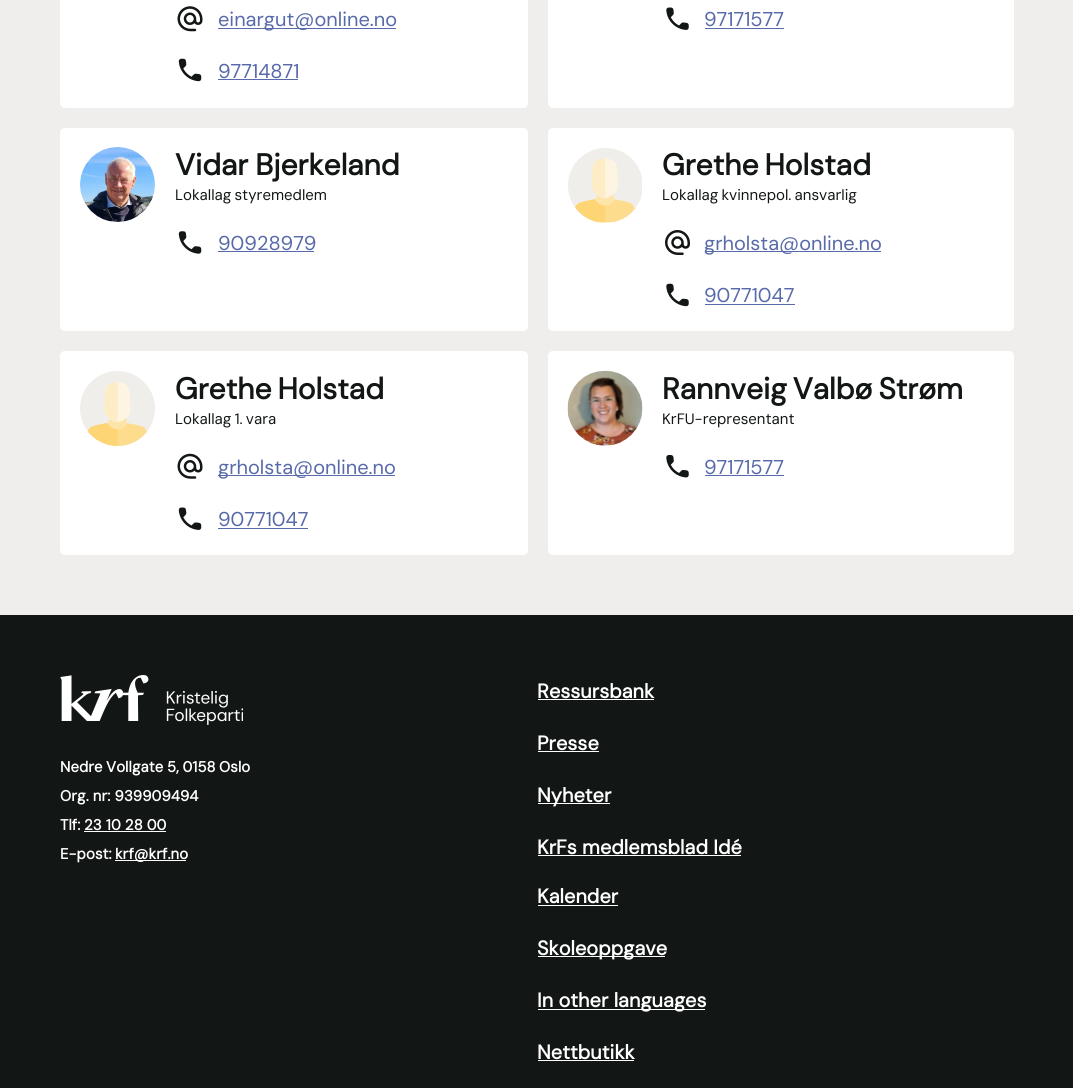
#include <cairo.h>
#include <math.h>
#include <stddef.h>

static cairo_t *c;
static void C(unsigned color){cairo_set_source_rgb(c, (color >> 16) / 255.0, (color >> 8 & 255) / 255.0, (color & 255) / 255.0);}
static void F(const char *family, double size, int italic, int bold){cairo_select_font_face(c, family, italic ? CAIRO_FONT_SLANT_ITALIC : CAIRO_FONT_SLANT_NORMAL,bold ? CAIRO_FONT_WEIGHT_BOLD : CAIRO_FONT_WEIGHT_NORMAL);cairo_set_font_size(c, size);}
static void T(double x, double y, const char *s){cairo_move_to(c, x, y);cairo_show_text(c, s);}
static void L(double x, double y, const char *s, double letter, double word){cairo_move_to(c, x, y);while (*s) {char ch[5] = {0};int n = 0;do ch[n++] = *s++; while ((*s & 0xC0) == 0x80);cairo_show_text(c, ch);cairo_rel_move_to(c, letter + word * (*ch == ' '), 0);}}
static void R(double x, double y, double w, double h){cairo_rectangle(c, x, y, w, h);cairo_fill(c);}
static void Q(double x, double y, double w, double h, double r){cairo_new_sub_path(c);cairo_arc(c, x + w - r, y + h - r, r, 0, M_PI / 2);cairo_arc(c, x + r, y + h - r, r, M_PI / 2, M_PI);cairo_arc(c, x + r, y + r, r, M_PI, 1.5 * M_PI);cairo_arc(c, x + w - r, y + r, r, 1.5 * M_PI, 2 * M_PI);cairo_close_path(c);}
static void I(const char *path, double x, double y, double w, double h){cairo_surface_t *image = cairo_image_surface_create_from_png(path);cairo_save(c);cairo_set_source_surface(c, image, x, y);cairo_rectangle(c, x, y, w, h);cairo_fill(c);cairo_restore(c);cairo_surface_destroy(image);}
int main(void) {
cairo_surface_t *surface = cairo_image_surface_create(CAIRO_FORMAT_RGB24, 1073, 1088);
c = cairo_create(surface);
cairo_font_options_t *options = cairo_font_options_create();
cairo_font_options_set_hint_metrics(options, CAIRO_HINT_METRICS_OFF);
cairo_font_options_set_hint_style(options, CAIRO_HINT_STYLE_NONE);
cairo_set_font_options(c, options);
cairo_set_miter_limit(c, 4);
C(0xf0eeec);
cairo_paint(c);
C(0xffffff);
Q(60,-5,468,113,5);
cairo_fill(c);
I("1.png",177,6,26,26);
C(0x586aaa);
R(218,28,178,1);
F("DM Sans",20,0,0);
T(218,26,"einargut@online.no");
I("2.png",178,58,24,24);
T(218,78,"97714871");
R(218,79,80,1);
C(0xffffff);
Q(548,-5,466,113,5);
cairo_fill(c);
I("3.png",666,7,23,23);
C(0x586aaa);
T(704,26,"97171577");
R(705,28,79,1);
C(0xffffff);
Q(60,128,468,203,5);
cairo_fill(c);
I("4.png",80,147,75,75);
F("DM Sans",30,0,1);
C(0x121614);
L(175,175,"Vidar Bjerkeland",0,-1);
F("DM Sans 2",15,0,0);
L(175,200,"Lokallag styremedlem",0,-1);
I("5.png",178,231,24,23);
F("DM Sans",20,0,0);
C(0x586aaa);
T(218,250,"90928979");
R(218,251,96,1);
C(0xffffff);
Q(548,128,466,203,5);
cairo_fill(c);
I("6.png",568,148,74,75);
F("DM Sans",30,0,1);
C(0x121614);
L(662,175,"Grethe Holstad",0,-2);
F("DM Sans 2",15,0,0);
L(662,200,"Lokallag kvinnepol. ansvarlig",0,-1);
I("7.png",665,230,25,25);
C(0x586aaa);
R(705,251,176,1);
F("DM Sans",20,0,0);
T(704,250,"grholsta@online.no");
I("8.png",666,283,23,24);
T(704,302,"90771047");
R(705,304,90,1);
C(0xffffff);
Q(60,351,468,204,5);
cairo_fill(c);
I("9.png",80,371,75,75);
F("DM Sans",30,0,1);
C(0x121614);
L(175,399,"Grethe Holstad",0,-2);
F("DM Sans 2",15,0,0);
L(175,424,"Lokallag 1. vara",0,-1);
I("10.png",177,453,26,26);
C(0x586aaa);
R(218,475,177,1);
F("DM Sans",20,0,0);
T(218,474,"grholsta@online.no");
I("11.png",178,507,24,23);
T(218,526,"90771047");
R(218,528,90,1);
C(0xffffff);
Q(548,351,466,204,5);
cairo_fill(c);
I("12.png",567,370,76,76);
F("DM Sans",30,0,1);
C(0x121614);
L(662,399,"Rannveig Valbø Strøm",0,-2);
F("DM Sans 2",15,0,0);
T(662,424,"KrFU-representant");
I("13.png",666,455,23,23);
F("DM Sans",20,0,0);
C(0x586aaa);
T(704,474,"97171577");
R(705,475,79,1);
C(0x121614);
R(0,615,1073,473);
I("14.png",60,675,183,50);
F("DM Sans 2",15,0,1);
C(0xffffff);
L(60,772,"Nedre Vollgate 5, 0158 Oslo",0,-.5);
T(60,801,"Org. nr: 939909494");
T(60,830,"Tlf:");
T(84,830,"23 10 28 00");
R(84,831,82,1);
T(60,859,"E-post:");
R(115,860,71,1);
T(115,859,"krf@krf.no");
F("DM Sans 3",20,0,1);
T(537,698,"Ressursbank");
R(538,699,116,1);
T(537,750,"Presse");
R(538,751,61,1);
R(538,803,72,1);
T(537,802,"Nyheter");
T(537,854,"KrFs medlemsblad Idé");
R(538,855,203,1);
T(537,903,"Kalender");
R(538,905,80,1);
R(538,956,127,1);
T(537,955,"Skoleoppgave");
R(538,1009,167,1);
T(537,1007,"In other languages");
T(537,1059,"Nettbutikk");
R(538,1060,96,1);
cairo_surface_write_to_png(surface, "o.png");
cairo_font_options_destroy(options);
cairo_destroy(c);
cairo_surface_destroy(surface);
return 0;
}
